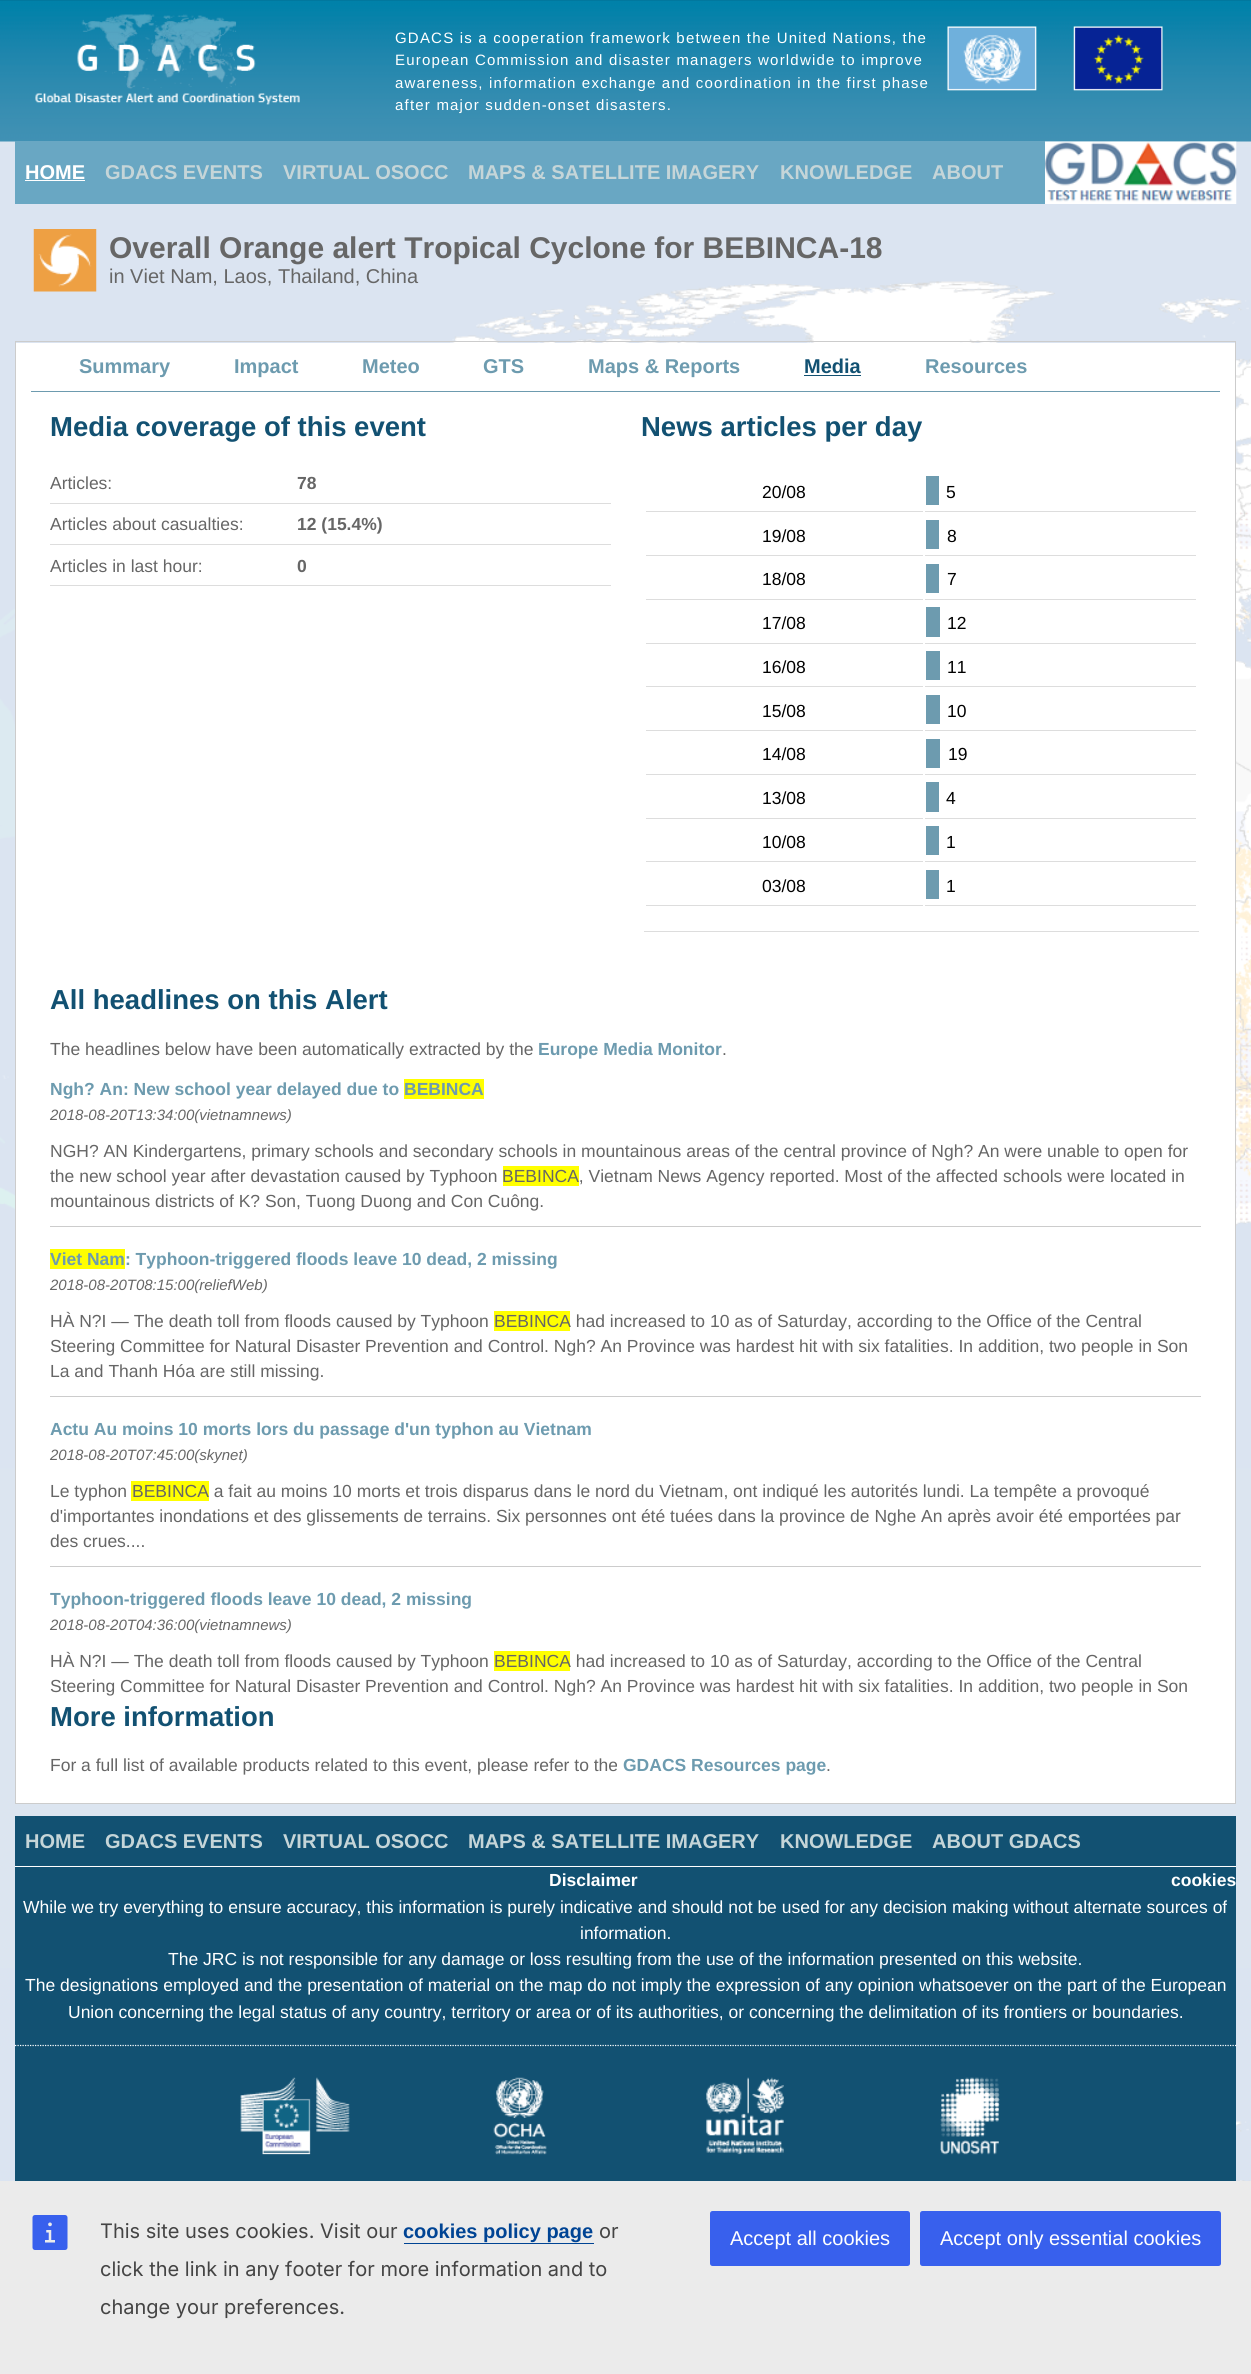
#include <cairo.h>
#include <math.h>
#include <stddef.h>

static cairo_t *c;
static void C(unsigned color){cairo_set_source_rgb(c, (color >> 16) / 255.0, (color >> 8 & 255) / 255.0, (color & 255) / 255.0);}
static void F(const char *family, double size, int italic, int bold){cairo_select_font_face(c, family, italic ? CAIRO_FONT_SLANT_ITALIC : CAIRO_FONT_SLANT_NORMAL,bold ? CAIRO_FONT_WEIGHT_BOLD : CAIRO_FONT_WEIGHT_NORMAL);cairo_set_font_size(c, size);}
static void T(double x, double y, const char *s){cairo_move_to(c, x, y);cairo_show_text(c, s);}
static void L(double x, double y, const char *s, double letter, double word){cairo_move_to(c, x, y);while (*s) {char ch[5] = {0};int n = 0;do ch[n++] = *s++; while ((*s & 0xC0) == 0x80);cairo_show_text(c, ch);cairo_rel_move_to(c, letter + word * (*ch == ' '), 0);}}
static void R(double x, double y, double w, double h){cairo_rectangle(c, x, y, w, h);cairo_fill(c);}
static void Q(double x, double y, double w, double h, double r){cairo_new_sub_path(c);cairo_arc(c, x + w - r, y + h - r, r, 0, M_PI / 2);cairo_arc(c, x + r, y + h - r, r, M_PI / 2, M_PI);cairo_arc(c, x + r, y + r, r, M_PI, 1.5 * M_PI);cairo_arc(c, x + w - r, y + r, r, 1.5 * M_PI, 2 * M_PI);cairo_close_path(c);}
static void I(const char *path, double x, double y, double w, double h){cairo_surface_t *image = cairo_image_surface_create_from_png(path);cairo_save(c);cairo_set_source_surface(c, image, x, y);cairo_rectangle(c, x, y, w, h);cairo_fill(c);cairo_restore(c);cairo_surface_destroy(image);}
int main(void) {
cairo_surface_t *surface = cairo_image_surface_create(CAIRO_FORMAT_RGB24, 1251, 2374);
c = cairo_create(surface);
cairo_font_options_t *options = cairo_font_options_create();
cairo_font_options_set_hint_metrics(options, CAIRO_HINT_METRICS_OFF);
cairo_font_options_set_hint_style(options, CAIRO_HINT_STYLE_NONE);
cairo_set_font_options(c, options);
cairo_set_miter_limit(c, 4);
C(0xffffff);
cairo_paint(c);
I("1.png",0,141,1251,2040);
I("2.png",0,0,1251,142);
I("3.png",35,13,265,92);
F("Liberation Sans",15,0,0);
C(0xffffff);
L(395,43,"GDACS is a cooperation framework between the United Nations, the",1.2,0);
L(395,65,"European Commission and disaster managers worldwide to improve",1.2,0);
L(395,88,"awareness, information exchange and coordination in the first phase",1.2,0);
L(395,110,"after major sudden-onset disasters.",1.2,0);
I("4.png",947,26,216,65);
C(0x69a7c3);
R(15,141,1221,63);
F("Liberation Sans",20,0,1);
C(0xffffff);
T(25,179,"HOME");
R(25,180,60,1);
C(0xc5d5d8);
T(105,179,"GDACS EVENTS");
T(283,179,"VIRTUAL OSOCC");
T(468,179,"MAPS & SATELLITE IMAGERY");
T(780,179,"KNOWLEDGE");
T(932,179,"ABOUT");
I("5.png",1045,141,192,63);
I("6.png",33,229,64,63);
F("Liberation Sans",30,0,1);
C(0x666666);
T(109,258,"Overall Orange alert Tropical Cyclone for BEBINCA-18");
F("Liberation Sans",20,0,0);
T(109,283,"in Viet Nam, Laos, Thailand, China");
C(0xffffff);
R(16,343,1219,1460);
C(0xcccccc);
R(15,341,1221,1);
R(1235,341,1,1463);
R(15,341,1,70);
C(0x6d9baf);
R(31,391,1189,1);
F("Liberation Sans",20,0,1);
T(79,373,"Summary");
T(234,373,"Impact");
T(362,373,"Meteo");
T(483,373,"GTS");
T(588,373,"Maps & Reports");
C(0x125172);
T(804,373,"Media");
R(804,375,57,1);
C(0x6d9baf);
T(925,373,"Resources");
C(0xcccccc);
R(15,1803,1221,1);
R(15,411,1,1393);
F("Liberation Sans",27.5,0,1);
C(0x125172);
T(50,436,"Media coverage of this event");
F("Liberation Sans",17.5,0,0);
C(0x666666);
T(50,489,"Articles:");
C(0xdddddd);
R(50,503,561,1);
F("Liberation Sans",17.5,0,1);
C(0x666666);
T(297,489,"78");
F("Liberation Sans",17.5,0,0);
T(50,530,"Articles about casualties:");
C(0xdddddd);
R(50,544,561,1);
F("Liberation Sans",17.5,0,1);
C(0x666666);
T(297,530,"12 (15.4%)");
F("Liberation Sans",17.5,0,0);
T(50,572,"Articles in last hour:");
C(0xdddddd);
R(50,585,561,1);
F("Liberation Sans",17.5,0,1);
C(0x666666);
T(297,572,"0");
F("Liberation Sans",27.5,0,1);
C(0x125172);
T(641,436,"News articles per day");
C(0xdddddd);
R(644,931,555,1);
R(646,511,277,1);
F("Liberation Sans",17.5,0,0);
C(0x000000);
T(762,498,"20/08");
C(0xdddddd);
R(925,511,271,1);
C(0x6d9baf);
R(926,476,13,29);
C(0x000000);
T(946,498,"5");
C(0xdddddd);
R(646,555,277,1);
C(0x000000);
T(762,542,"19/08");
C(0xdddddd);
R(925,555,271,1);
C(0x6d9baf);
R(926,520,13,29);
C(0x000000);
T(947,542,"8");
C(0xdddddd);
R(646,599,277,1);
C(0x000000);
T(762,585,"18/08");
C(0xdddddd);
R(925,599,271,1);
C(0x6d9baf);
R(926,564,13,29);
C(0x000000);
T(947,585,"7");
C(0xdddddd);
R(646,643,277,1);
C(0x000000);
T(762,629,"17/08");
C(0xdddddd);
R(925,643,271,1);
C(0x6d9baf);
R(926,607,14,30);
C(0x000000);
T(947,629,"12");
C(0xdddddd);
R(646,686,277,1);
C(0x000000);
T(762,673,"16/08");
C(0xdddddd);
R(925,686,271,1);
C(0x6d9baf);
R(926,651,14,29);
C(0x000000);
T(947,673,"11");
C(0xdddddd);
R(646,730,277,1);
C(0x000000);
T(762,717,"15/08");
C(0xdddddd);
R(925,730,271,1);
C(0x6d9baf);
R(926,695,14,29);
C(0x000000);
T(947,717,"10");
C(0xdddddd);
R(646,774,277,1);
C(0x000000);
T(762,760,"14/08");
C(0xdddddd);
R(925,774,271,1);
C(0x6d9baf);
R(926,739,14,29);
C(0x000000);
T(948,760,"19");
C(0xdddddd);
R(646,818,277,1);
C(0x000000);
T(762,804,"13/08");
C(0xdddddd);
R(925,818,271,1);
C(0x6d9baf);
R(926,782,13,30);
C(0x000000);
T(946,804,"4");
C(0xdddddd);
R(646,861,277,1);
C(0x000000);
T(762,848,"10/08");
C(0xdddddd);
R(925,861,271,1);
C(0x6d9baf);
R(926,826,13,29);
C(0x000000);
T(946,848,"1");
C(0xdddddd);
R(646,905,277,1);
C(0x000000);
T(762,892,"03/08");
C(0xdddddd);
R(925,905,271,1);
C(0x6d9baf);
R(926,870,13,29);
C(0x000000);
T(946,892,"1");
F("Liberation Sans",27.5,0,1);
C(0x125172);
T(50,1009,"All headlines on this Alert");
F("Liberation Sans",17.5,0,0);
C(0x666666);
T(50,1055,"The headlines below have been automatically extracted by the");
F("Liberation Sans",17.5,0,1);
C(0x6d9baf);
T(538,1055,"Europe Media Monitor");
F("Liberation Sans",17.5,0,0);
C(0x666666);
T(722,1055,".");
C(0xcccccc);
R(50,1226,1151,1);
F("Liberation Sans",17.5,0,1);
C(0x6d9baf);
T(50,1095,"Ngh? An: New school year delayed due to");
C(0xffff00);
R(404,1079,80,20);
C(0x6d9baf);
T(404,1095,"BEBINCA");
F("Liberation Sans",15,1,0);
C(0x666666);
T(50,1120,"2018-08-20T13:34:00(vietnamnews)");
F("Liberation Sans",17.5,0,0);
T(50,1157,"NGH? AN Kindergartens, primary schools and secondary schools in mountainous areas of the central province of Ngh? An were unable to open for");
T(50,1182,"the new school year after devastation caused by Typhoon");
C(0xffff00);
R(503,1166,76,20);
C(0x666666);
T(502,1182,"BEBINCA, Vietnam News Agency reported. Most of the affected schools were located in");
T(50,1207,"mountainous districts of K? Son, Tuong Duong and Con Cuông.");
C(0xcccccc);
R(50,1396,1151,1);
C(0xffff00);
R(50,1249,75,20);
F("Liberation Sans",17.5,0,1);
C(0x6d9baf);
T(50,1265,"Viet Nam: Typhoon-triggered floods leave 10 dead, 2 missing");
F("Liberation Sans",15,1,0);
C(0x666666);
T(50,1290,"2018-08-20T08:15:00(reliefWeb)");
F("Liberation Sans",17.5,0,0);
T(50,1327,"HÀ N?I — The death toll from floods caused by Typhoon");
C(0xffff00);
R(494,1311,76,20);
C(0x666666);
T(494,1327,"BEBINCA had increased to 10 as of Saturday, according to the Office of the Central");
T(50,1352,"Steering Committee for Natural Disaster Prevention and Control. Ngh? An Province was hardest hit with six fatalities. In addition, two people in Son");
T(50,1377,"La and Thanh Hóa are still missing.");
C(0xcccccc);
R(50,1566,1151,1);
F("Liberation Sans",17.5,0,1);
C(0x6d9baf);
T(50,1435,"Actu Au moins 10 morts lors du passage d'un typhon au Vietnam");
F("Liberation Sans",15,1,0);
C(0x666666);
T(50,1460,"2018-08-20T07:45:00(skynet)");
F("Liberation Sans",17.5,0,0);
T(50,1497,"Le typhon");
C(0xffff00);
R(131,1481,78,20);
C(0x666666);
T(132,1497,"BEBINCA a fait au moins 10 morts et trois disparus dans le nord du Vietnam, ont indiqué les autorités lundi. La tempête a provoqué");
T(50,1522,"d'importantes inondations et des glissements de terrains. Six personnes ont été tuées dans la province de Nghe An après avoir été emportées par");
T(50,1547,"des crues....");
F("Liberation Sans",17.5,0,1);
C(0x6d9baf);
T(50,1605,"Typhoon-triggered floods leave 10 dead, 2 missing");
F("Liberation Sans",15,1,0);
C(0x666666);
T(50,1630,"2018-08-20T04:36:00(vietnamnews)");
F("Liberation Sans",17.5,0,0);
T(50,1667,"HÀ N?I — The death toll from floods caused by Typhoon");
C(0xffff00);
R(494,1651,76,20);
C(0x666666);
T(494,1667,"BEBINCA had increased to 10 as of Saturday, according to the Office of the Central");
T(50,1692,"Steering Committee for Natural Disaster Prevention and Control. Ngh? An Province was hardest hit with six fatalities. In addition, two people in Son");
F("Liberation Sans",27.5,0,1);
C(0x125172);
T(50,1726,"More information");
F("Liberation Sans",17.5,0,0);
C(0x666666);
T(50,1771,"For a full list of available products related to this event, please refer to the");
F("Liberation Sans",17.5,0,1);
C(0x6d9baf);
T(623,1771,"GDACS Resources page");
F("Liberation Sans",17.5,0,0);
C(0x666666);
T(826,1771,".");
C(0x125172);
R(15,1816,1221,365);
F("Liberation Sans",20,0,1);
C(0xc5d5d8);
T(25,1848,"HOME");
T(105,1848,"GDACS EVENTS");
T(283,1848,"VIRTUAL OSOCC");
T(468,1848,"MAPS & SATELLITE IMAGERY");
T(780,1848,"KNOWLEDGE");
T(932,1848,"ABOUT GDACS");
C(0xffffff);
R(15,1866,1221,1);
cairo_new_path(c);
cairo_move_to(c,15,2045.5);
cairo_line_to(c,1236,2045.5);
cairo_set_line_width(c,1.2);
cairo_set_dash(c,(double[]){1.25,1.25},2,0);
cairo_stroke(c);
F("Liberation Sans",17.5,0,1);
T(549,1886,"Disclaimer");
F("Liberation Sans",17.5,0,0);
T(23,1913,"While we try everything to ensure accuracy, this information is purely indicative and should not be used for any decision making without alternate sources of");
T(580,1939,"information.");
T(168,1965,"The JRC is not responsible for any damage or loss resulting from the use of the information presented on this website.");
T(25,1991,"The designations employed and the presentation of material on the map do not imply the expression of any opinion whatsoever on the part of the European");
T(68,2018,"Union concerning the legal status of any country, territory or area or of its authorities, or concerning the delimitation of its frontiers or boundaries.");
F("Liberation Sans",17.5,0,1);
T(1171,1886,"cookies");
I("7.png",240,2077,110,78);
I("8.png",493,2077,54,78);
I("9.png",706,2077,78,78);
I("10.png",940,2077,60,78);
C(0xebebeb);
R(0,2181,1251,193);
I("11.png",32,2215,36,35);
F("Inter",20,0,0);
C(0x444444);
T(100,2238,"This site uses cookies. Visit our");
F("Liberation Sans",20,0,1);
C(0x004494);
T(403,2238,"cookies policy page");
R(404,2243,190,1);
F("Inter",20,0,0);
C(0x444444);
T(599,2238,"or");
T(100,2276,"click the link in any footer for more information and to");
T(100,2314,"change your preferences.");
C(0x3860ed);
Q(710,2211,200,55,2.5);
cairo_fill(c);
F("Liberation Sans",20,0,0);
C(0xffffff);
T(730,2245,"Accept all cookies");
C(0x3860ed);
Q(920,2211,301,55,2.5);
cairo_fill(c);
C(0xffffff);
T(940,2245,"Accept only essential cookies");
cairo_surface_write_to_png(surface, "o.png");
cairo_font_options_destroy(options);
cairo_destroy(c);
cairo_surface_destroy(surface);
return 0;
}
